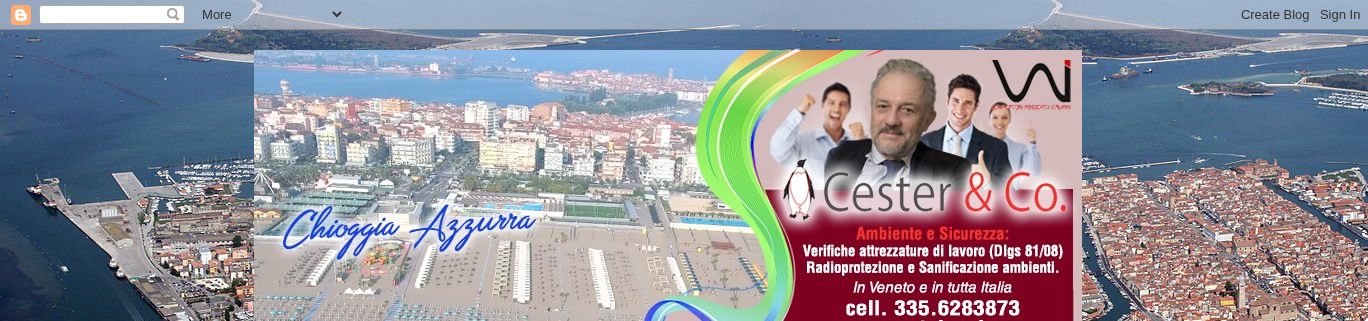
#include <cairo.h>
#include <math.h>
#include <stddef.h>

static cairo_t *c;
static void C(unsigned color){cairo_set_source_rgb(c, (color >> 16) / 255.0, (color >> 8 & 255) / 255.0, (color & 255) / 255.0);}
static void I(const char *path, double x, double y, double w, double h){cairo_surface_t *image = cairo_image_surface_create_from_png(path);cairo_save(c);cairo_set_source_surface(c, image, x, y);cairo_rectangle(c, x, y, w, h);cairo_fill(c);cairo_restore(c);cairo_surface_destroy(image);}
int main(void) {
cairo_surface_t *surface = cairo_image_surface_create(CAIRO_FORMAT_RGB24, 1368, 321);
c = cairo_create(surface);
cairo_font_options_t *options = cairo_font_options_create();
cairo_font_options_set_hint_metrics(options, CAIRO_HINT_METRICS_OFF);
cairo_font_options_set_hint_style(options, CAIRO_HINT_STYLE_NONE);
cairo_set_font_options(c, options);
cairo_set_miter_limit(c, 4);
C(0xffffff);
cairo_paint(c);
I("1.png",0,0,1368,321);
I("2.png",0,0,1368,30);
I("3.png",254,50,828,271);
cairo_surface_write_to_png(surface, "o.png");
cairo_font_options_destroy(options);
cairo_destroy(c);
cairo_surface_destroy(surface);
return 0;
}
